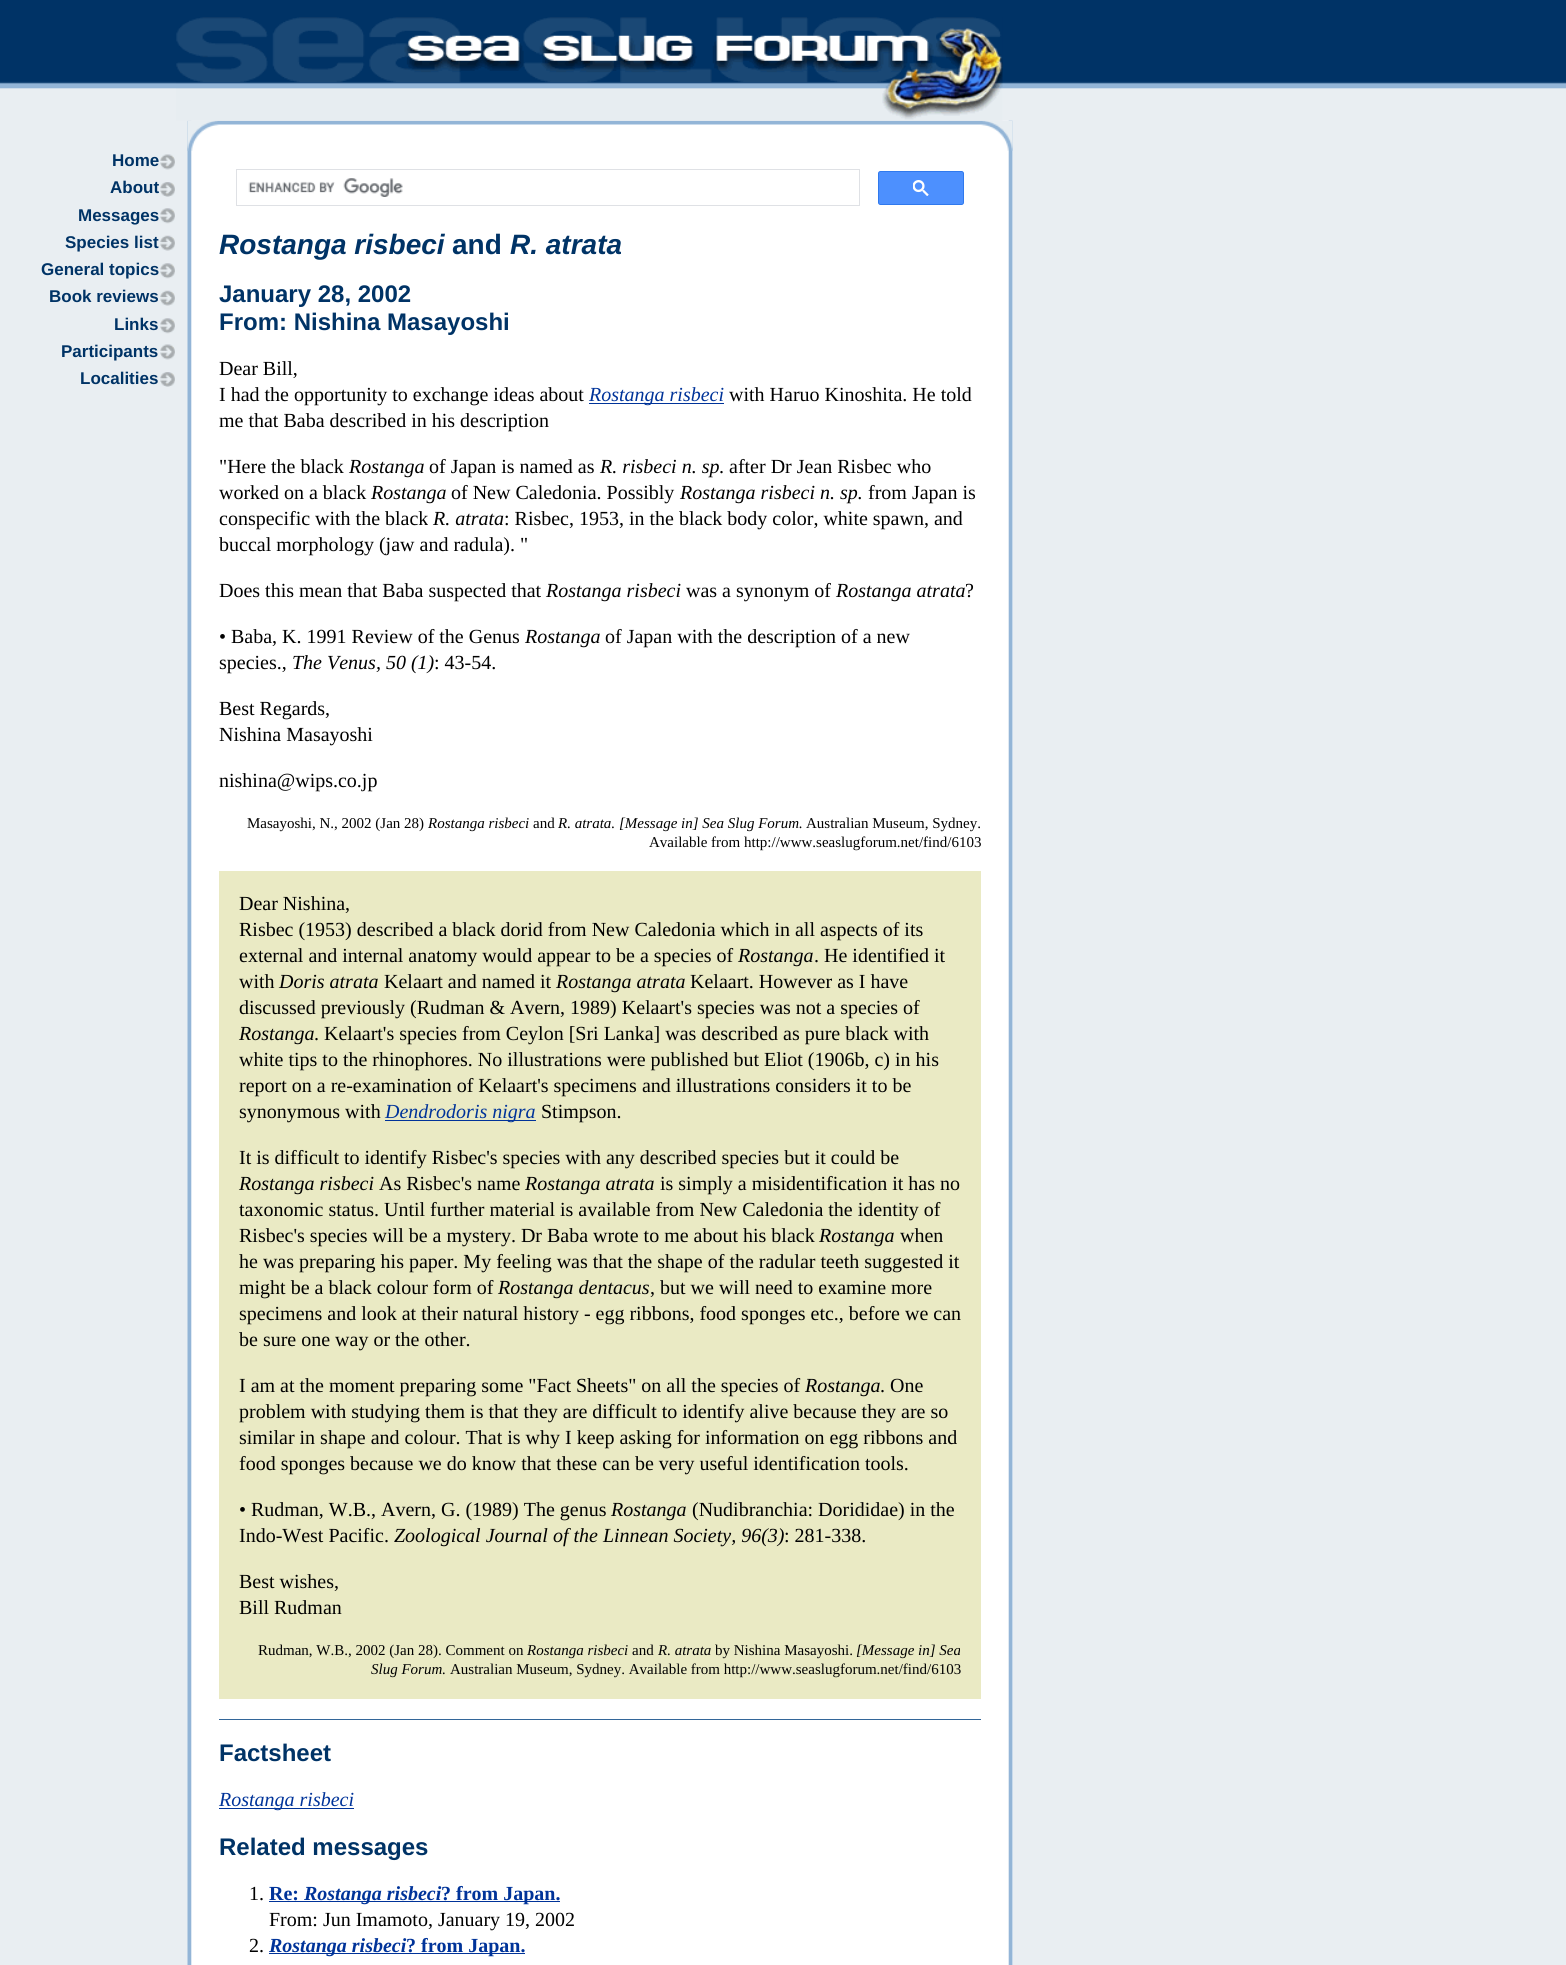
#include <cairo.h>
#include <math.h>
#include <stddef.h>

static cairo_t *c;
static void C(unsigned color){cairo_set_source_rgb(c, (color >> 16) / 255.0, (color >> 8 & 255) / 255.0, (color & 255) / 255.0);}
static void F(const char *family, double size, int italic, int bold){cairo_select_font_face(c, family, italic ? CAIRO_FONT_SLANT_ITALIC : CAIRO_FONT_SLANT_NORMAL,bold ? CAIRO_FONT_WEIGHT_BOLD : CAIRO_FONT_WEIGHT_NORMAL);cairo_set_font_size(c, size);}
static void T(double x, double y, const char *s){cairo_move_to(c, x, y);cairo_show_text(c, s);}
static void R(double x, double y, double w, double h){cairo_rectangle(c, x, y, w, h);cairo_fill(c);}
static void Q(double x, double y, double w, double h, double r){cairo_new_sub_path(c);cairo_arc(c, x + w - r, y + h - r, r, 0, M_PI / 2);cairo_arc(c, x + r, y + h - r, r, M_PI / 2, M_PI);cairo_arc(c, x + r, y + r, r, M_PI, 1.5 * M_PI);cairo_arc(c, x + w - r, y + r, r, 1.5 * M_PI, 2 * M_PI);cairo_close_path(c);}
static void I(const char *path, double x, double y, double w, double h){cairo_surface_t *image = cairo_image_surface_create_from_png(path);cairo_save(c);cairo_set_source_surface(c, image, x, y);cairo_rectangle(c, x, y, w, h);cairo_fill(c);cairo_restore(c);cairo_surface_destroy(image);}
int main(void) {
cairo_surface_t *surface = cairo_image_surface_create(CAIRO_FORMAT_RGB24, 1566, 1965);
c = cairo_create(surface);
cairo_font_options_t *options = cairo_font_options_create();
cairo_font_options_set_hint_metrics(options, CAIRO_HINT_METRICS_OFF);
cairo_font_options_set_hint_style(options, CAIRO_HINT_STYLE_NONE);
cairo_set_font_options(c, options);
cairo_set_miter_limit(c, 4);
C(0xe9eef2);
cairo_paint(c);
I("1.png",0,0,1566,89);
C(0xffffff);
R(1012,121,1,1844);
I("8.png",187,120,826,1845);
I("9.png",187,120,826,31);
I("2.png",176,17,827,104);
I("3.png",160,154,15,16);
F("Liberation Sans",17,0,1);
C(0x003366);
T(112,166,"Home");
I("4.png",160,182,15,15);
T(110,193,"About");
I("5.png",160,208,15,16);
T(78,221,"Messages");
I("6.png",160,235,15,16);
T(65,248,"Species list");
I("5.png",160,263,15,16);
T(41,275,"General topics");
I("7.png",160,290,15,16);
T(49,302,"Book reviews");
I("5.png",160,318,15,16);
T(114,330,"Links");
I("3.png",160,344,15,16);
T(61,357,"Participants");
I("4.png",160,372,15,15);
T(80,384,"Localities");
cairo_rectangle(c,236.5,169.5,623,36);
C(0xdfe1e5);
cairo_set_line_width(c,1);
cairo_stroke(c);
I("10.png",248,178,155,19);
C(0x4d90fe);
Q(878.5,171.5,85,33,2);
cairo_fill_preserve(c);
C(0x3079ed);
cairo_stroke(c);
I("11.png",913,180,16,16);
F("Liberation Sans",28,1,1);
C(0x003366);
T(219,254,"Rostanga risbeci");
F("Liberation Sans",28,0,1);
T(452,254,"and");
F("Liberation Sans",28,1,1);
T(510,254,"R. atrata");
F("Liberation Sans",24,0,1);
T(219,302,"January 28, 2002");
T(219,330,"From: Nishina Masayoshi");
F("Liberation Serif",20,0,0);
C(0x000000);
T(219,375,"Dear Bill,");
T(219,401,"I had the opportunity to exchange ideas about");
C(0x003399);
R(589,403,135,1);
F("Liberation Serif",20,1,0);
T(589,401,"Rostanga risbeci");
F("Liberation Serif",20,0,0);
C(0x000000);
T(729,401,"with Haruo Kinoshita. He told");
T(219,427,"me that Baba described in his description");
T(219,473,"\"Here the black");
F("Liberation Serif",20,1,0);
T(349,473,"Rostanga");
F("Liberation Serif",20,0,0);
T(429,473,"of Japan is named as");
F("Liberation Serif",20,1,0);
T(600,473,"R. risbeci n. sp");
F("Liberation Serif",20,0,0);
T(719,473,". after Dr Jean Risbec who");
T(219,499,"worked on a black");
F("Liberation Serif",20,1,0);
T(371,499,"Rostanga");
F("Liberation Serif",20,0,0);
T(451,499,"of New Caledonia. Possibly");
F("Liberation Serif",20,1,0);
T(680,499,"Rostanga risbeci n. sp.");
F("Liberation Serif",20,0,0);
T(868,499,"from Japan is");
T(219,525,"conspecific with the black");
F("Liberation Serif",20,1,0);
T(433,525,"R. atrata");
F("Liberation Serif",20,0,0);
T(504,525,": Risbec, 1953, in the black body color, white spawn, and");
T(219,551,"buccal morphology (jaw and radula). \"");
T(219,597,"Does this mean that Baba suspected that");
F("Liberation Serif",20,1,0);
T(546,597,"Rostanga risbeci");
F("Liberation Serif",20,0,0);
T(686,597,"was a synonym of");
F("Liberation Serif",20,1,0);
T(836,597,"Rostanga atrata");
F("Liberation Serif",20,0,0);
T(965,597,"?");
T(219,643,"• Baba, K. 1991 Review of the Genus");
F("Liberation Serif",20,1,0);
T(525,643,"Rostanga");
F("Liberation Serif",20,0,0);
T(605,643,"of Japan with the description of a new");
T(219,669,"species.,");
F("Liberation Serif",20,1,0);
T(292,669,"The Venus, 50 (1)");
F("Liberation Serif",20,0,0);
T(434,669,": 43-54.");
T(219,715,"Best Regards,");
T(219,741,"Nishina Masayoshi");
T(219,787,"nishina@wips.co.jp");
F("Liberation Serif",15,0,0);
T(247,828,"Masayoshi, N., 2002 (Jan 28)");
F("Liberation Serif",15,1,0);
T(428,828,"Rostanga risbeci");
F("Liberation Serif",15,0,0);
T(533,828,"and");
F("Liberation Serif",15,1,0);
T(558,828,"R. atrata");
F("Liberation Serif",15,0,0);
T(611,828,".");
F("Liberation Serif",15,1,0);
T(619,828,"[Message in] Sea Slug Forum.");
F("Liberation Serif",15,0,0);
T(806,828,"Australian Museum, Sydney.");
T(649,847,"Available from http://www.seaslugforum.net/find/6103");
C(0xeaeac4);
R(219,871,762,828);
F("Liberation Serif",20,0,0);
C(0x000000);
T(239,910,"Dear Nishina,");
T(239,936,"Risbec (1953) described a black dorid from New Caledonia which in all aspects of its");
T(239,962,"external and internal anatomy would appear to be a species of");
F("Liberation Serif",20,1,0);
T(738,962,"Rostanga");
F("Liberation Serif",20,0,0);
T(814,962,". He identified it");
T(239,988,"with");
F("Liberation Serif",20,1,0);
T(279,988,"Doris atrata");
F("Liberation Serif",20,0,0);
T(384,988,"Kelaart and named it");
F("Liberation Serif",20,1,0);
T(556,988,"Rostanga atrata");
F("Liberation Serif",20,0,0);
T(690,988,"Kelaart. However as I have");
T(239,1014,"discussed previously (Rudman & Avern, 1989) Kelaart's species was not a species of");
F("Liberation Serif",20,1,0);
T(239,1040,"Rostanga");
F("Liberation Serif",20,0,0);
T(314,1040,". Kelaart's species from Ceylon [Sri Lanka] was described as pure black with");
T(239,1066,"white tips to the rhinophores. No illustrations were published but Eliot (1906b, c) in his");
T(239,1092,"report on a re-examination of Kelaart's specimens and illustrations considers it to be");
T(239,1118,"synonymous with");
C(0x003399);
R(385,1120,151,1);
F("Liberation Serif",20,1,0);
T(385,1118,"Dendrodoris nigra");
F("Liberation Serif",20,0,0);
C(0x000000);
T(541,1118,"Stimpson.");
T(239,1164,"It is difficult to identify Risbec's species with any described species but it could be");
F("Liberation Serif",20,1,0);
T(239,1190,"Rostanga risbeci");
F("Liberation Serif",20,0,0);
T(379,1190,"As Risbec's name");
F("Liberation Serif",20,1,0);
T(525,1190,"Rostanga atrata");
F("Liberation Serif",20,0,0);
T(660,1190,"is simply a misidentification it has no");
T(239,1216,"taxonomic status. Until further material is available from New Caledonia the identity of");
T(239,1242,"Risbec's species will be a mystery. Dr Baba wrote to me about his black");
F("Liberation Serif",20,1,0);
T(819,1242,"Rostanga");
F("Liberation Serif",20,0,0);
T(900,1242,"when");
T(239,1268,"he was preparing his paper. My feeling was that the shape of the radular teeth suggested it");
T(239,1294,"might be a black colour form of");
F("Liberation Serif",20,1,0);
T(498,1294,"Rostanga dentacus");
F("Liberation Serif",20,0,0);
T(650,1294,", but we will need to examine more");
T(239,1320,"specimens and look at their natural history - egg ribbons, food sponges etc., before we can");
T(239,1346,"be sure one way or the other.");
T(239,1392,"I am at the moment preparing some \"Fact Sheets\" on all the species of");
F("Liberation Serif",20,1,0);
T(805,1392,"Rostanga");
F("Liberation Serif",20,0,0);
T(880,1392,". One");
T(239,1418,"problem with studying them is that they are difficult to identify alive because they are so");
T(239,1444,"similar in shape and colour. That is why I keep asking for information on egg ribbons and");
T(239,1470,"food sponges because we do know that these can be very useful identification tools.");
T(239,1516,"• Rudman, W.B., Avern, G. (1989) The genus");
F("Liberation Serif",20,1,0);
T(611,1516,"Rostanga");
F("Liberation Serif",20,0,0);
T(692,1516,"(Nudibranchia: Dorididae) in the");
T(239,1542,"Indo-West Pacific.");
F("Liberation Serif",20,1,0);
T(394,1542,"Zoological Journal of the Linnean Society, 96(3)");
F("Liberation Serif",20,0,0);
T(784,1542,": 281-338.");
T(239,1588,"Best wishes,");
T(239,1614,"Bill Rudman");
F("Liberation Serif",15,0,0);
T(258,1655,"Rudman, W.B., 2002 (Jan 28). Comment on");
F("Liberation Serif",15,1,0);
T(527,1655,"Rostanga risbeci");
F("Liberation Serif",15,0,0);
T(632,1655,"and");
F("Liberation Serif",15,1,0);
T(658,1655,"R. atrata");
F("Liberation Serif",15,0,0);
T(715,1655,"by Nishina Masayoshi.");
F("Liberation Serif",15,1,0);
T(856,1655,"[Message in] Sea");
T(371,1674,"Slug Forum.");
F("Liberation Serif",15,0,0);
T(450,1674,"Australian Museum, Sydney. Available from http://www.seaslugforum.net/find/6103");
C(0x336699);
R(219,1719,762,1);
F("Liberation Sans",24,0,1);
C(0x003366);
T(219,1761,"Factsheet");
C(0x003399);
R(219,1808,135,1);
F("Liberation Serif",20,1,0);
T(219,1806,"Rostanga risbeci");
F("Liberation Sans",24,0,1);
C(0x003366);
T(219,1855,"Related messages");
F("Liberation Serif",20,0,0);
C(0x000000);
T(249,1900,"1.");
F("Liberation Serif",20,0,1);
C(0x003399);
T(269,1900,"Re:");
R(269,1901,291,1);
F("Liberation Serif",20,1,1);
T(304,1900,"Rostanga risbeci");
F("Liberation Serif",20,0,1);
T(441,1900,"? from Japan.");
F("Liberation Serif",20,0,0);
C(0x000000);
T(269,1926,"From: Jun Imamoto, January 19, 2002");
T(249,1952,"2.");
C(0x003399);
R(269,1953,256,1);
F("Liberation Serif",20,1,1);
T(269,1952,"Rostanga risbeci");
F("Liberation Serif",20,0,1);
T(406,1952,"? from Japan.");
cairo_surface_write_to_png(surface, "o.png");
cairo_font_options_destroy(options);
cairo_destroy(c);
cairo_surface_destroy(surface);
return 0;
}
